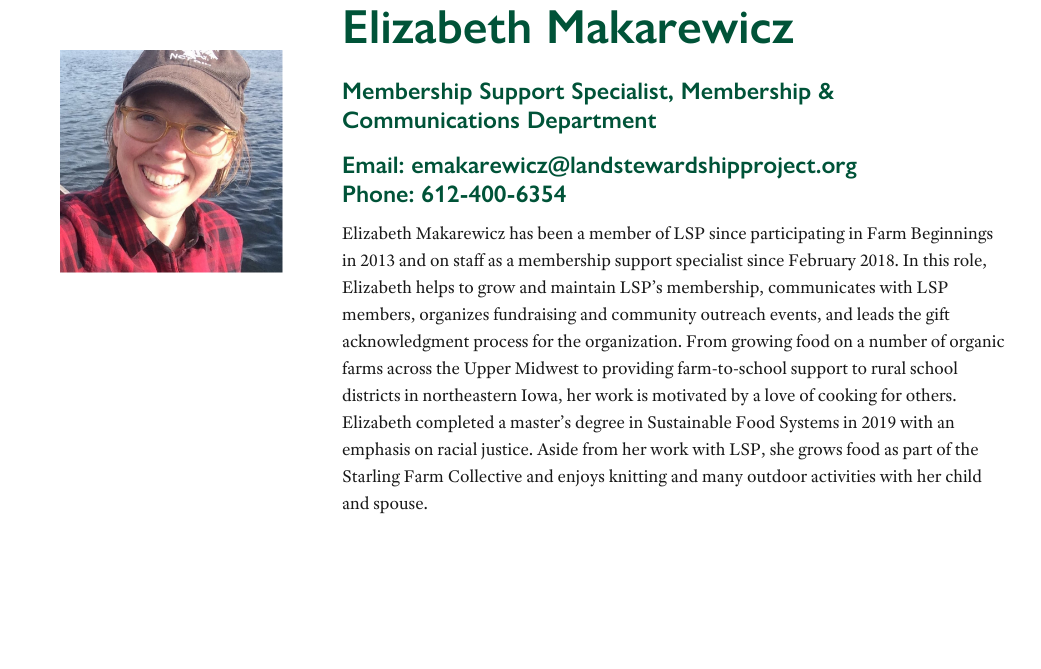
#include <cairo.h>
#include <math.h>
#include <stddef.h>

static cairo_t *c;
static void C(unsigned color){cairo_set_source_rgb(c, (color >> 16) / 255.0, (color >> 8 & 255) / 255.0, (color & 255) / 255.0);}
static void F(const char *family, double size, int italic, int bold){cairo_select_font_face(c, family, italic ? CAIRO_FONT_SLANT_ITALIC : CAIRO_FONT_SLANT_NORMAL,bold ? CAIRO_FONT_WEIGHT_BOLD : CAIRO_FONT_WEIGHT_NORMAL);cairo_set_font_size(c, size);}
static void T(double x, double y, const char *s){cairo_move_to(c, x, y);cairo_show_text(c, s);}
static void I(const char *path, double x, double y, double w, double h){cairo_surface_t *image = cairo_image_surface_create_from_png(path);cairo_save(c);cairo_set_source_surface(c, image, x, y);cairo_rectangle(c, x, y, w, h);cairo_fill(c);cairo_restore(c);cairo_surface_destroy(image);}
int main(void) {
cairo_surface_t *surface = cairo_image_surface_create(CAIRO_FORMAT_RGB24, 1041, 669);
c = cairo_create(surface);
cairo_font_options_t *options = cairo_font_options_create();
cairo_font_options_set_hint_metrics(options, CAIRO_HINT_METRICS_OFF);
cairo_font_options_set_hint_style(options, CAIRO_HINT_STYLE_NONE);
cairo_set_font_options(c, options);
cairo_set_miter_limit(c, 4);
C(0xffffff);
cairo_paint(c);
I("1.png",60,50,223,223);
F("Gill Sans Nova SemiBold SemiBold",48,0,0);
C(0x005338);
T(342,43,"Elizabeth Makarewicz");
F("Gill Sans Nova SemiBold SemiBold",24,0,0);
T(342,99,"Membership Support Specialist, Membership &");
T(342,128,"Communications Department");
T(342,173,"Email: emakarewicz@landstewardshipproject.org");
T(342,202,"Phone: 612-400-6354");
F("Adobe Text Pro",18,0,0);
C(0x191919);
T(342,239,"Elizabeth Makarewicz has been a member of LSP since participating in Farm Beginnings");
T(342,266,"in 2013 and on staff as a membership support specialist since February 2018. In this role,");
T(342,293,"Elizabeth helps to grow and maintain LSP’s membership, communicates with LSP");
T(342,320,"members, organizes fundraising and community outreach events, and leads the gift");
T(342,347,"acknowledgment process for the organization. From growing food on a number of organic");
T(342,374,"farms across the Upper Midwest to providing farm-to-school support to rural school");
T(342,401,"districts in northeastern Iowa, her work is motivated by a love of cooking for others.");
T(342,428,"Elizabeth completed a master’s degree in Sustainable Food Systems in 2019 with an");
T(342,455,"emphasis on racial justice. Aside from her work with LSP, she grows food as part of the");
T(342,482,"Starling Farm Collective and enjoys knitting and many outdoor activities with her child");
T(342,509,"and spouse.");
cairo_surface_write_to_png(surface, "o.png");
cairo_font_options_destroy(options);
cairo_destroy(c);
cairo_surface_destroy(surface);
return 0;
}
